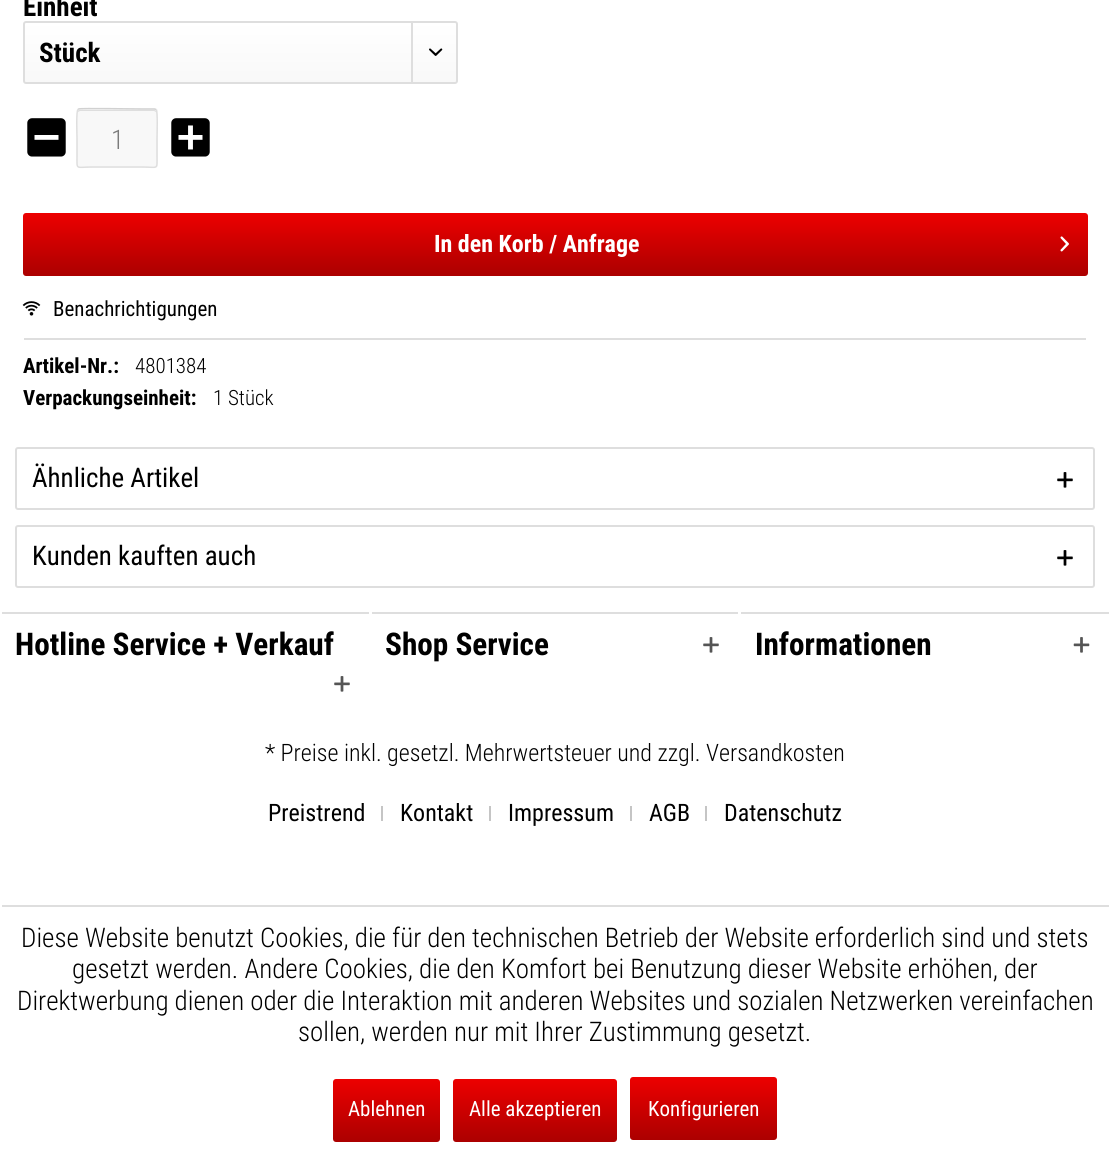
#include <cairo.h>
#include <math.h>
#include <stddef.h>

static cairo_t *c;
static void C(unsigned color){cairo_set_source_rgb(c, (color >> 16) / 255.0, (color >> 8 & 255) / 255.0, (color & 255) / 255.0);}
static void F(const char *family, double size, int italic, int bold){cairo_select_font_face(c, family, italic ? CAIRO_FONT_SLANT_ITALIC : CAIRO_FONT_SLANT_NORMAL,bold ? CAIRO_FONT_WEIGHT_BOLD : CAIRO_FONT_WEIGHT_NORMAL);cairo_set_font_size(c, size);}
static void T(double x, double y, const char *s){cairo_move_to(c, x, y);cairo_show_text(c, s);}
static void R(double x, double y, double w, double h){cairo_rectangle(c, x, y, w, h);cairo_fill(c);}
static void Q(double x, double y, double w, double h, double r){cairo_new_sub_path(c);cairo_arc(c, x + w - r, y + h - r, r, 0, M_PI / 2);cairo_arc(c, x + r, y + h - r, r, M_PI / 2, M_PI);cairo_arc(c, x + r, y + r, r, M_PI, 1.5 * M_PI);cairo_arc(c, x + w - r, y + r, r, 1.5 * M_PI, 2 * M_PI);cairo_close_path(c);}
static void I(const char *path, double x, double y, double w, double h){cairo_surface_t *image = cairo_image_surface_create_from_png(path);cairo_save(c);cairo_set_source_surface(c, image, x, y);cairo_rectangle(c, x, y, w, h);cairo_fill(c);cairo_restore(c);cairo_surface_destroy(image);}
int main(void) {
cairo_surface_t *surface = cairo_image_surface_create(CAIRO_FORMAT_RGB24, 1109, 1156);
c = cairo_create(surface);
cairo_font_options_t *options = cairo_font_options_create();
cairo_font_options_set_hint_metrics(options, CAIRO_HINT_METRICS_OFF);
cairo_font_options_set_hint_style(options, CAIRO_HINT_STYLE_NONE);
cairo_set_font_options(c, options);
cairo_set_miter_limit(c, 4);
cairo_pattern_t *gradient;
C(0xffffff);
cairo_paint(c);
F("Roboto Condensed",27,0,1);
C(0x000000);
T(23,16,"Einheit");
gradient = cairo_pattern_create_linear(240,22,240,83);
cairo_pattern_add_color_stop_rgba(gradient,0,1,1,1,1);
cairo_pattern_add_color_stop_rgba(gradient,1,0.973,0.973,0.973,1);
cairo_set_source(c,gradient);
cairo_pattern_destroy(gradient);
Q(24,23,432,60,1.5);
cairo_fill(c);
Q(24,22,433,61,2);
C(0xdedede);
cairo_stroke(c);
C(0x000000);
T(39,62,"Stück");
C(0xdedede);
R(411,23,2,60);
I("1.png",429,48,14,8);
I("2.png",27,118,39,39);
C(0xf8f8f8);
Q(77,108,81,60,3);
cairo_fill(c);
C(0xdedede);
cairo_new_path(c);
cairo_move_to(c,80,111);
cairo_line_to(c,154,111);
cairo_line_to(c,156,112);
cairo_curve_to(c,156,111,156,110,154,110);
cairo_line_to(c,79,110);
cairo_curve_to(c,78,110,78,111,78,112);
cairo_close_path(c);
cairo_fill(c);
cairo_new_path(c);
cairo_move_to(c,78,109.5);
cairo_line_to(c,78.5,109);
cairo_curve_to(c,80,108,135.5,109,142,109);
cairo_line_to(c,154.5,109);
cairo_line_to(c,156,109.5);
C(0xd1d1d1);
cairo_set_line_width(c,1.5);
cairo_stroke(c);
cairo_new_path(c);
cairo_move_to(c,156,109.5);
cairo_curve_to(c,158,111,157,134.5,157,138);
cairo_line_to(c,157,156);
cairo_curve_to(c,157,170.5,158.5,167,142,167);
cairo_line_to(c,92,167);
cairo_curve_to(c,75.5,167,77,170.5,77,156);
cairo_line_to(c,77,138);
cairo_curve_to(c,77,134.5,76,111,78,109.5);
C(0xdedede);
cairo_stroke(c);
F("Roboto Condensed Light",27,0,0);
C(0x7b7b7b);
T(111,149,"1");
I("3.png",171,118,39,39);
gradient = cairo_pattern_create_linear(555,213,555,276);
cairo_pattern_add_color_stop_rgba(gradient,0,0.929,0,0,1);
cairo_pattern_add_color_stop_rgba(gradient,1,0.671,0,0,1);
cairo_set_source(c,gradient);
cairo_pattern_destroy(gradient);
Q(23,213,1065,63,3);
cairo_fill(c);
F("Roboto Condensed",24,0,1);
C(0xffffff);
T(434,252,"In den Korb / Anfrage");
I("4.png",1060,236,9,16);
C(0xdedede);
R(24,338,1062,2);
I("5.png",22,301,19,15);
F("Roboto Condensed",21,0,0);
C(0x000000);
T(53,316,"Benachrichtigungen");
F("Roboto Condensed",21,0,1);
T(23,373,"Artikel-Nr.:");
F("Roboto Condensed Light",21,0,0);
T(135,373,"4801384");
F("Roboto Condensed",21,0,1);
T(23,405,"Verpackungseinheit:");
F("Roboto Condensed Light",21,0,0);
T(213,405,"1 Stück");
Q(16,448,1078,61,2);
C(0xdedede);
cairo_set_line_width(c,2);
cairo_stroke(c);
F("Roboto Condensed",27,0,0);
C(0x000000);
T(32,487,"Ähnliche Artikel");
I("6.png",1057,472,16,16);
Q(16,526,1078,61,2);
C(0xdedede);
cairo_stroke(c);
C(0x000000);
T(32,565,"Kunden kauften auch");
I("6.png",1057,550,16,16);
C(0xdedede);
R(2,612,367,2);
F("Roboto Condensed",31.25,0,1);
C(0x000000);
T(15,655,"Hotline Service + Verkauf");
I("7.png",334,676,16,16);
C(0xdedede);
R(372,612,366,2);
C(0x000000);
T(385,655,"Shop Service");
I("7.png",703,637,16,16);
C(0xdedede);
R(741,612,368,2);
C(0x000000);
T(755,655,"Informationen");
I("8.png",1073,637,17,16);
F("Roboto Condensed Light",24,0,0);
T(265,761,"* Preise inkl. gesetzl. Mehrwertsteuer und zzgl. Versandkosten");
F("Roboto Condensed",24,0,0);
T(268,821,"Preistrend");
C(0xc5c5c5);
R(381,806,2,15);
C(0x000000);
T(400,821,"Kontakt");
C(0xc5c5c5);
R(489,806,2,15);
C(0x000000);
T(508,821,"Impressum");
C(0xc5c5c5);
R(630,806,2,15);
C(0x000000);
T(649,821,"AGB");
C(0xc5c5c5);
R(705,806,2,15);
C(0x000000);
T(724,821,"Datenschutz");
C(0xdedede);
R(2,905,1107,2);
F("Roboto Condensed Light",27,0,0);
C(0x000000);
T(21,947,"Diese Website benutzt Cookies, die für den technischen Betrieb der Website erforderlich sind und stets");
T(72,978,"gesetzt werden. Andere Cookies, die den Komfort bei Benutzung dieser Website erhöhen, der");
T(17,1010,"Direktwerbung dienen oder die Interaktion mit anderen Websites und sozialen Netzwerken vereinfachen");
T(298,1041,"sollen, werden nur mit Ihrer Zustimmung gesetzt.");
gradient = cairo_pattern_create_linear(386,1079,386,1142);
cairo_pattern_add_color_stop_rgba(gradient,0,0.929,0,0,1);
cairo_pattern_add_color_stop_rgba(gradient,1,0.671,0,0,1);
cairo_set_source(c,gradient);
cairo_pattern_destroy(gradient);
Q(333,1079,107,63,3);
cairo_fill(c);
F("Roboto Condensed",21,0,0);
C(0xffffff);
T(348,1116,"Ablehnen");
gradient = cairo_pattern_create_linear(535,1079,535,1142);
cairo_pattern_add_color_stop_rgba(gradient,0,0.929,0,0,1);
cairo_pattern_add_color_stop_rgba(gradient,1,0.671,0,0,1);
cairo_set_source(c,gradient);
cairo_pattern_destroy(gradient);
Q(453,1079,164,63,3);
cairo_fill(c);
C(0xffffff);
T(469,1116,"Alle akzeptieren");
gradient = cairo_pattern_create_linear(704,1077,704,1140);
cairo_pattern_add_color_stop_rgba(gradient,0,0.929,0,0,1);
cairo_pattern_add_color_stop_rgba(gradient,1,0.671,0,0,1);
cairo_set_source(c,gradient);
cairo_pattern_destroy(gradient);
Q(630,1077,147,63,3);
cairo_fill(c);
C(0xffffff);
T(648,1116,"Konfigurieren");
cairo_surface_write_to_png(surface, "o.png");
cairo_font_options_destroy(options);
cairo_destroy(c);
cairo_surface_destroy(surface);
return 0;
}
